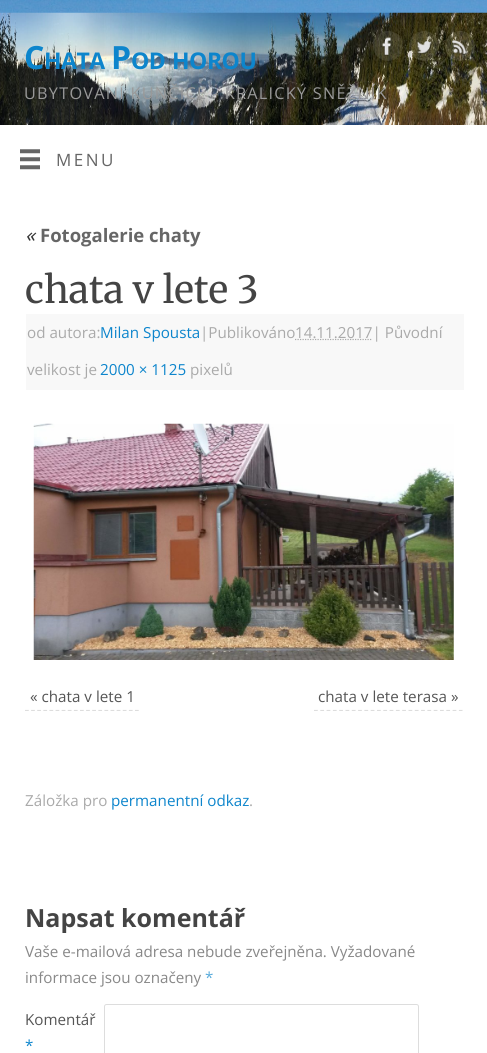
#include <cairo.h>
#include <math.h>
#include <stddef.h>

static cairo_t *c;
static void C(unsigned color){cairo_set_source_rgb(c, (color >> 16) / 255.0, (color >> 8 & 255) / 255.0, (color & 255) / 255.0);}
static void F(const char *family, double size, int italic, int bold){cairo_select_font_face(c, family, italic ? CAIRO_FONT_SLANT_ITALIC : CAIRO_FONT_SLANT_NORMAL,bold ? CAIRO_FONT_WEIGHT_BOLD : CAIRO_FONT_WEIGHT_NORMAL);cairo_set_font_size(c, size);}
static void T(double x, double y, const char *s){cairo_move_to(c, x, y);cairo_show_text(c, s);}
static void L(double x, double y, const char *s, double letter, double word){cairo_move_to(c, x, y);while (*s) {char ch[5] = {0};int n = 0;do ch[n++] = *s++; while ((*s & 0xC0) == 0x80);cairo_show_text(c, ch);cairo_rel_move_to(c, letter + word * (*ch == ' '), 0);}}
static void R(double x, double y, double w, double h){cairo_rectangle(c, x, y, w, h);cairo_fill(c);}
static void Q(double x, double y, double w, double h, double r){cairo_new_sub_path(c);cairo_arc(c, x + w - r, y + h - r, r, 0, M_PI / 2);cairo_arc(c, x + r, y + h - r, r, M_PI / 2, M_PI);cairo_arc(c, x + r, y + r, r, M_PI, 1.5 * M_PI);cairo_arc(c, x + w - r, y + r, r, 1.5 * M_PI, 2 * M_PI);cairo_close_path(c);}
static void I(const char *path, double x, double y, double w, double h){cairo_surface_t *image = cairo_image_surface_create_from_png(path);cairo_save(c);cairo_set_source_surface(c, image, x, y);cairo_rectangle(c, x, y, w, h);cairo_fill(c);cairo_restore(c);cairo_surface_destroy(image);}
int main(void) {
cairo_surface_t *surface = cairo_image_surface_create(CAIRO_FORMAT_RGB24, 487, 1053);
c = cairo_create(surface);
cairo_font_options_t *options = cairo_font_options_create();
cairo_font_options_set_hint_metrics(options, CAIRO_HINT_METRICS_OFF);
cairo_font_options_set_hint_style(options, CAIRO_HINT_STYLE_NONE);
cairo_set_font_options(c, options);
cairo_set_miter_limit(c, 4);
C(0xffffff);
cairo_paint(c);
I("1.png",0,0,487,13);
I("2.png",0,12,487,113);
F("Open Sans",32,0,1);
C(0x0d85cc);
L(24,69,"C",-.5,0);
F("Open Sans",23,0,1);
L(44,69,"HATA",-.5,0);
F("Open Sans",32,0,1);
L(111,69,"P",-.5,0);
F("Open Sans",23,0,1);
L(131,69,"OD",-.5,0);
L(172,69,"HOROU",-.5,0);
F("Open Sans",16.25,0,0);
C(0x999999);
L(24,99,"UBYTOVÁNÍ KUNČICE - KRALICKÝ SNĚŽNÍK",1.25,0);
cairo_set_source_rgba(c,1,1,1,0.1);
cairo_new_path(c);
cairo_arc(c,388,46,15,0,2 * M_PI);
cairo_fill(c);
I("3.png",382,37,9,20);
cairo_arc(c,424,46,15,0,2 * M_PI);
cairo_fill(c);
I("4.png",417,41,15,13);
cairo_arc(c,460,46,15,0,2 * M_PI);
cairo_fill(c);
I("5.png",452,40,15,15);
I("6.png",20,149,20,21);
F("Open Sans",17,0,0);
C(0x666666);
L(56,166,"MENU",2.5,0);
F("Open Sans",20,1,0);
C(0x333333);
T(25,242,"«");
F("Open Sans",18.5,0,1);
C(0x666666);
T(40,242,"Fotogalerie chaty");
F("Merriweather",37.5,0,0);
C(0x444444);
T(25,303,"chata v lete 3");
C(0xf8f8f8);
R(26,314,438,76);
F("Open Sans",15.2,0,0);
C(0xaaaaaa);
T(27,338,"od autora:");
C(0x0d85cc);
T(100,338,"Milan Spousta");
C(0xaaaaaa);
T(200,338,"|Publikováno");
cairo_new_path(c);
cairo_move_to(c,295,339.5);
cairo_line_to(c,372.5,339.5);
cairo_set_line_width(c,1.2);
cairo_set_dash(c,(double[]){1.25,1.25},2,0);
cairo_stroke(c);
T(295,338,"14.11.2017| Původní");
T(27,375,"velikost je");
C(0x0d85cc);
T(100,375,"2000 × 1125");
C(0xaaaaaa);
T(190,375,"pixelů");
I("7.png",33,423,421,237);
cairo_save(c);
cairo_rectangle(c,25,685,438,26);
cairo_clip(c);
cairo_new_path(c);
cairo_move_to(c,25,710.5);
cairo_line_to(c,139,710.5);
C(0xdddddd);
cairo_set_dash(c,(double[]){3.75,2.36},2,0);
cairo_stroke(c);
cairo_restore(c);
C(0x555555);
T(30,702,"« chata v lete 1");
cairo_save(c);
cairo_rectangle(c,25,685,438,26);
cairo_clip(c);
cairo_new_path(c);
cairo_move_to(c,314,710.5);
cairo_line_to(c,462.5,710.5);
C(0xdddddd);
cairo_set_dash(c,(double[]){3.75,2.55},2,0);
cairo_stroke(c);
cairo_restore(c);
T(318,702,"chata v lete terasa »");
C(0xaaaaaa);
T(25,806,"Záložka pro");
C(0x0d85cc);
T(111,806,"permanentní odkaz");
C(0xaaaaaa);
T(249,806,".");
F("Open Sans",25,0,1);
C(0x444444);
T(25,927,"Napsat komentář");
F("Open Sans",15.2,0,0);
C(0x888888);
T(25,957,"Vaše e-mailová adresa nebude zveřejněna. Vyžadované");
T(25,983,"informace jsou označeny");
C(0x56aadb);
T(205,983,"*");
C(0x555555);
T(25,1025,"Komentář");
C(0x0d85cc);
T(25,1051,"*");
Q(104.5,1004.5,314,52,2);
C(0xdddddd);
cairo_set_line_width(c,1);
cairo_set_dash(c,NULL,0,0);
cairo_stroke(c);
cairo_surface_write_to_png(surface, "o.png");
cairo_font_options_destroy(options);
cairo_destroy(c);
cairo_surface_destroy(surface);
return 0;
}
